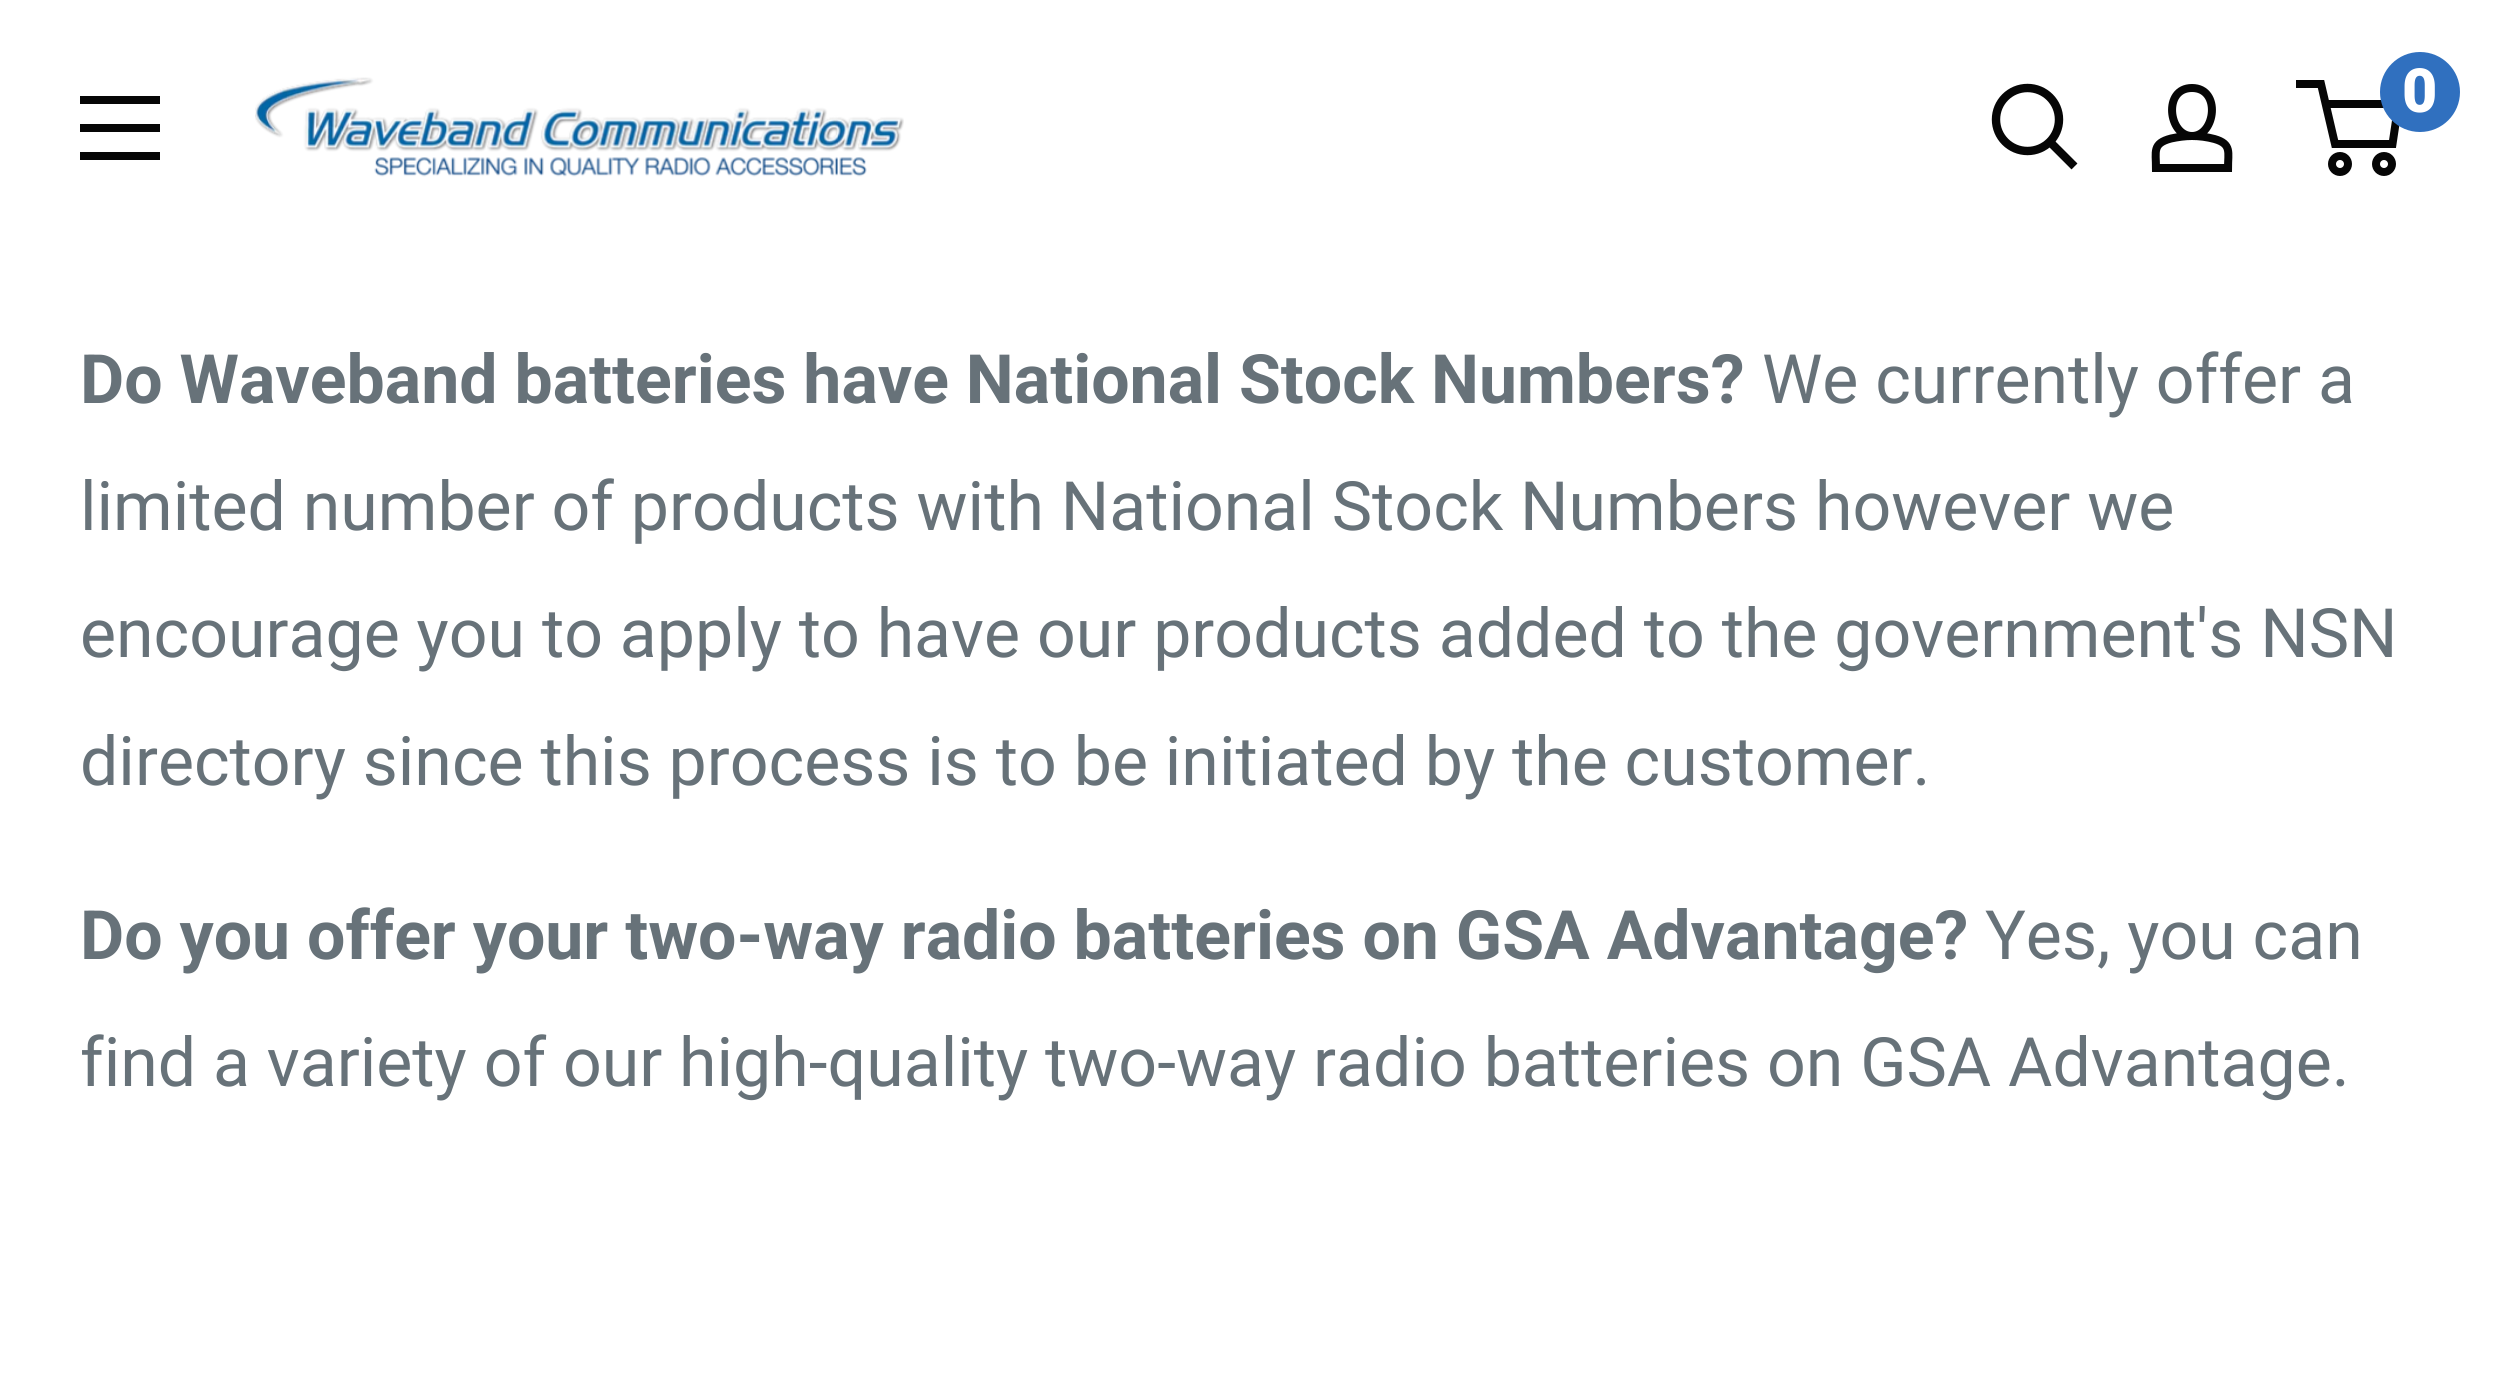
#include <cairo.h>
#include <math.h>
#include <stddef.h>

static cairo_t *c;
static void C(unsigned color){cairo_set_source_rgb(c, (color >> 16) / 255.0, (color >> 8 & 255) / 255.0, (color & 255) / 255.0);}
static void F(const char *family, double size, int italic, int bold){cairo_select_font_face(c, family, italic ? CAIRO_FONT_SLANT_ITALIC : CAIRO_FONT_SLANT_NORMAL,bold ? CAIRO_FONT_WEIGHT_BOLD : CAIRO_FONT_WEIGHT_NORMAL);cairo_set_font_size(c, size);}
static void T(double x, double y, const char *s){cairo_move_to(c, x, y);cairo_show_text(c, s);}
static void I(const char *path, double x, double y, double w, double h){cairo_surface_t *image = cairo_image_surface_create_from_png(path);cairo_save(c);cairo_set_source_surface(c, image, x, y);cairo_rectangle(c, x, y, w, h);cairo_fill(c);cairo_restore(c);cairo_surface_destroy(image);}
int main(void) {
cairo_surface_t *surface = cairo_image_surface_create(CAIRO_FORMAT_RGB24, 2498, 1381);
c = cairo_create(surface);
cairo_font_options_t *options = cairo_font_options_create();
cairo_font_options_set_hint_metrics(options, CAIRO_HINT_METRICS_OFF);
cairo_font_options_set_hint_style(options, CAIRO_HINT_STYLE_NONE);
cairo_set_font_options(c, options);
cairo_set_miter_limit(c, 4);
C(0xffffff);
cairo_paint(c);
C(0x060606);
cairo_set_fill_rule(c,CAIRO_FILL_RULE_EVEN_ODD);
cairo_new_path(c);
cairo_move_to(c,80,152);
cairo_line_to(c,160,152);
cairo_line_to(c,160,160);
cairo_line_to(c,80,160);
cairo_close_path(c);
cairo_move_to(c,80,96);
cairo_line_to(c,160,96);
cairo_line_to(c,160,104);
cairo_line_to(c,80,104);
cairo_close_path(c);
cairo_move_to(c,80,124);
cairo_line_to(c,160,124);
cairo_line_to(c,160,132);
cairo_line_to(c,80,132);
cairo_close_path(c);
cairo_fill(c);
I("1.png",255,77,649,100);
cairo_new_path(c);
cairo_move_to(c,2071.5,163.5);
cairo_line_to(c,2050.5,142.5);
cairo_set_line_width(c,8.4);
cairo_set_line_cap(c,CAIRO_LINE_CAP_SQUARE);
cairo_stroke(c);
cairo_arc(c,2027.5,119.5,31.5,0,2 * M_PI);
cairo_set_line_cap(c,CAIRO_LINE_CAP_BUTT);
cairo_stroke(c);
cairo_new_path(c);
cairo_move_to(c,2192,136);
cairo_curve_to(c,2199.5,136,2207,137,2214.5,139);
cairo_curve_to(c,2232,144,2228,152.5,2228,168);
cairo_line_to(c,2156,168);
cairo_curve_to(c,2156,151.5,2152,143.5,2171,138.5);
cairo_curve_to(c,2178,137,2185,136,2192,136);
cairo_close_path(c);
cairo_move_to(c,2192,136);
cairo_curve_to(c,2168.5,136,2162.5,88,2192,88);
cairo_curve_to(c,2221.5,88,2215.5,136,2192,136);
cairo_close_path(c);
cairo_set_line_width(c,8);
cairo_stroke(c);
cairo_arc(c,2340,164,8,0,2 * M_PI);
cairo_stroke(c);
cairo_arc(c,2384,164,8,0,2 * M_PI);
cairo_stroke(c);
cairo_new_path(c);
cairo_move_to(c,2325,104);
cairo_line_to(c,2398.5,104);
cairo_line_to(c,2392.5,144);
cairo_line_to(c,2335,144);
cairo_line_to(c,2321,84);
cairo_line_to(c,2296,84);
cairo_stroke(c);
C(0x3070bf);
cairo_arc(c,2420,92,40,0,2 * M_PI);
cairo_fill(c);
F("Roboto Black",61,0,0);
C(0xffffff);
T(2402,112,"0");
F("Roboto",68,0,1);
C(0x677279);
T(80,403,"Do Waveband batteries have National Stock Numbers?");
F("Roboto",68,0,0);
T(1762,403,"We currently offer a");
T(80,530,"limited number of products with National Stock Numbers however we");
T(80,657,"encourage you to apply to have our products added to the government's NSN");
T(80,785,"directory since this process is to be initiated by the customer.");
F("Roboto",68,0,1);
T(80,959,"Do you offer your two-way radio batteries on GSA Advantage?");
F("Roboto",68,0,0);
T(1985,959,"Yes, you can");
T(80,1086,"find a variety of our high-quality two-way radio batteries on GSA Advantage.");
cairo_surface_write_to_png(surface, "o.png");
cairo_font_options_destroy(options);
cairo_destroy(c);
cairo_surface_destroy(surface);
return 0;
}
